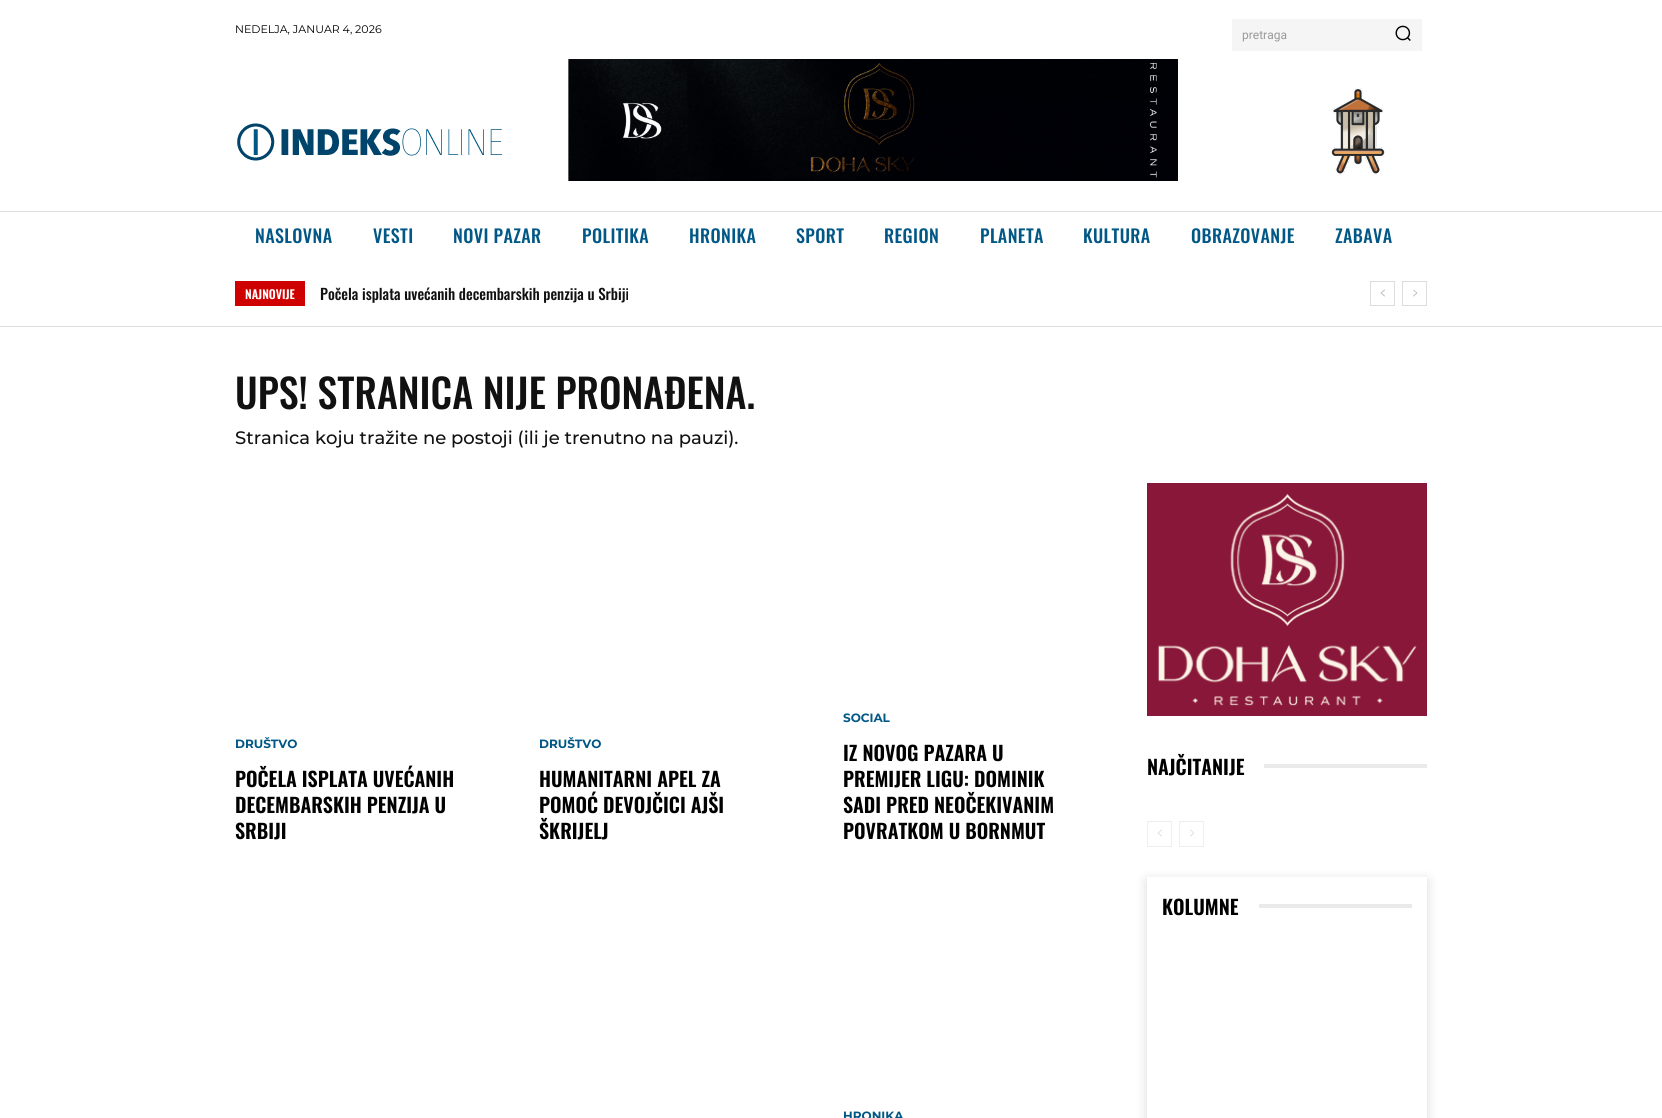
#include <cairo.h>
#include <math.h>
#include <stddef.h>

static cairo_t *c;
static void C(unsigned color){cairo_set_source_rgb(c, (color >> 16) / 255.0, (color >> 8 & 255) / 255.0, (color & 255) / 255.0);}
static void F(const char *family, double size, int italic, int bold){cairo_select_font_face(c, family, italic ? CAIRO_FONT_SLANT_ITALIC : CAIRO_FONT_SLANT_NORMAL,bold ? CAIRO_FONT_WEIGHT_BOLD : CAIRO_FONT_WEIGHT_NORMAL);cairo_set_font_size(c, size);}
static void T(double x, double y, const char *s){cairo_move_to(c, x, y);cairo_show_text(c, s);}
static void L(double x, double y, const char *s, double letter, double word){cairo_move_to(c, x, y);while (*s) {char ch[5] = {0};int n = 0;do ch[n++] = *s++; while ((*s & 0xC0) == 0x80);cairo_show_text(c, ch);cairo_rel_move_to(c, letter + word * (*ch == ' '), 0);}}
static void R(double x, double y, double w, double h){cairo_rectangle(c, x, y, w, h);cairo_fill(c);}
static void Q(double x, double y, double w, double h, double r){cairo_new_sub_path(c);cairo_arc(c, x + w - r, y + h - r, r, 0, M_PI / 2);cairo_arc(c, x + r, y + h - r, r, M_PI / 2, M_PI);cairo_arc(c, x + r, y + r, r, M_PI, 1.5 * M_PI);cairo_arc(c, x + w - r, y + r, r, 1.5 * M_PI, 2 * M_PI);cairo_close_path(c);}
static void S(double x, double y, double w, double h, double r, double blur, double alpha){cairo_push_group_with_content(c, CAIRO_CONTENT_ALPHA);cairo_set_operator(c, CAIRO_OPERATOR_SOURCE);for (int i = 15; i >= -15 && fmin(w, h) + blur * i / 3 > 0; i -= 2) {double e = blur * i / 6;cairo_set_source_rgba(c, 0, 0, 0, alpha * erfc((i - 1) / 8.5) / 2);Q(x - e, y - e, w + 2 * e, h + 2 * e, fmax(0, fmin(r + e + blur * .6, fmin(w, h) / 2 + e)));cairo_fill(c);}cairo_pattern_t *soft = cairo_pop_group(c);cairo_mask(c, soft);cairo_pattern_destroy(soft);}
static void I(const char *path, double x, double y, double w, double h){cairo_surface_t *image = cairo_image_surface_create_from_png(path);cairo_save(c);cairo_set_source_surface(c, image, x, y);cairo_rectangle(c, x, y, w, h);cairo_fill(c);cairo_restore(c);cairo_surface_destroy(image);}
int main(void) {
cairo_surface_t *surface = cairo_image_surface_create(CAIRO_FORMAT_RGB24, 1662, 1118);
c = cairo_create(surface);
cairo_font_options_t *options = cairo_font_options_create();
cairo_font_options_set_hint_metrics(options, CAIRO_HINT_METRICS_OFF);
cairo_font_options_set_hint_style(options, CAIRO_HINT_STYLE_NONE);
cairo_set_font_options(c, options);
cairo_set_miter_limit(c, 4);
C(0xffffff);
cairo_paint(c);
F("Montserrat",11,0,0);
C(0x000000);
T(235,33,"NEDELJA, JANUAR 4, 2026");
C(0xf5f5f5);
R(1232,19,190,32);
F("Roboto",12,0,0);
C(0x999999);
T(1242,39,"pretraga");
I("1.png",1395,25,16,16);
I("2.png",237,123,265,38);
I("3.png",568,59,610,122);
I("4.png",1331,88,54,87);
C(0xdddddd);
R(0,211,1662,1);
R(0,326,1662,1);
F("Oswald Medium",18,0,0);
C(0x015785);
L(255,243,"NASLOVNA",.4,0);
L(373,243,"VESTI",.4,0);
L(453,243,"NOVI PAZAR",.4,0);
L(582,243,"POLITIKA",.4,0);
L(689,243,"HRONIKA",.4,0);
L(796,243,"SPORT",.4,0);
L(884,243,"REGION",.4,0);
L(980,243,"PLANETA",.4,0);
L(1083,243,"KULTURA",.4,0);
L(1191,243,"OBRAZOVANJE",.4,0);
L(1335,243,"ZABAVA",.4,0);
C(0xce0000);
R(235,281,70,25);
F("Oswald SemiBold",12,0,0);
C(0xffffff);
T(245,299,"NAJNOVIJE");
F("Oswald Medium",15,0,0);
C(0x111111);
T(320,300,"Počela isplata uvećanih decembarskih penzija u Srbiji");
cairo_rectangle(c,1370.5,281.5,24,24);
C(0xdcdcdc);
cairo_set_line_width(c,1);
cairo_stroke(c);
I("5.png",1380,289,5,8);
cairo_rectangle(c,1402.5,281.5,24,24);
cairo_stroke(c);
I("6.png",1413,289,5,8);
F("Oswald Medium",40,0,0);
C(0x111111);
T(235,409,"UPS! STRANICA NIJE PRONAĐENA.");
F("Montserrat Medium",18,0,0);
T(235,444,"Stranica koju tražite ne postoji (ili je trenutno na pauzi).");
F("Montserrat",12,0,1);
C(0x015785);
T(235,748,"DRUŠTVO");
F("Oswald SemiBold",20,0,0);
C(0x000000);
T(235,787,"POČELA ISPLATA UVEĆANIH");
T(235,813,"DECEMBARSKIH PENZIJA U");
T(235,839,"SRBIJI");
F("Montserrat",12,0,1);
C(0x015785);
T(539,748,"DRUŠTVO");
F("Oswald SemiBold",20,0,0);
C(0x000000);
T(539,787,"HUMANITARNI APEL ZA");
T(539,813,"POMOĆ DEVOJČICI AJŠI");
T(539,839,"ŠKRIJELJ");
F("Montserrat",12,0,1);
C(0x015785);
T(843,722,"SOCIAL");
F("Oswald SemiBold",20,0,0);
C(0x000000);
T(843,761,"IZ NOVOG PAZARA U");
T(843,787,"PREMIJER LIGU: DOMINIK");
T(843,813,"SADI PRED NEOČEKIVANIM");
T(843,839,"POVRATKOM U BORNMUT");
F("Montserrat",12,0,1);
C(0x015785);
T(843,1120,"HRONIKA");
I("7.png",1147,483,280,233);
F("Oswald SemiBold",20,0,0);
C(0x000000);
T(1147,775,"NAJČITANIJE");
C(0xeaeaea);
R(1264,764,163,4);
cairo_rectangle(c,1147.5,821.5,24,25);
C(0xeeeeee);
cairo_stroke(c);
I("8.png",1157,829,5,8);
cairo_rectangle(c,1179.5,821.5,24,25);
cairo_stroke(c);
I("9.png",1190,829,4,8);
cairo_save(c);
cairo_set_fill_rule(c,CAIRO_FILL_RULE_EVEN_ODD);
cairo_new_path(c);
cairo_move_to(c,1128,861);
cairo_line_to(c,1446,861);
cairo_line_to(c,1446,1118);
cairo_line_to(c,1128,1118);
cairo_close_path(c);
cairo_move_to(c,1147,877);
cairo_line_to(c,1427,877);
cairo_line_to(c,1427,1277);
cairo_line_to(c,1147,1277);
cairo_close_path(c);
cairo_clip(c);
C(0x000000);
S(1147,880,280,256,0,6,.15);
cairo_restore(c);
C(0x000000);
T(1162,915,"KOLUMNE");
C(0xeaeaea);
R(1259,904,153,4);
cairo_surface_write_to_png(surface, "o.png");
cairo_font_options_destroy(options);
cairo_destroy(c);
cairo_surface_destroy(surface);
return 0;
}
